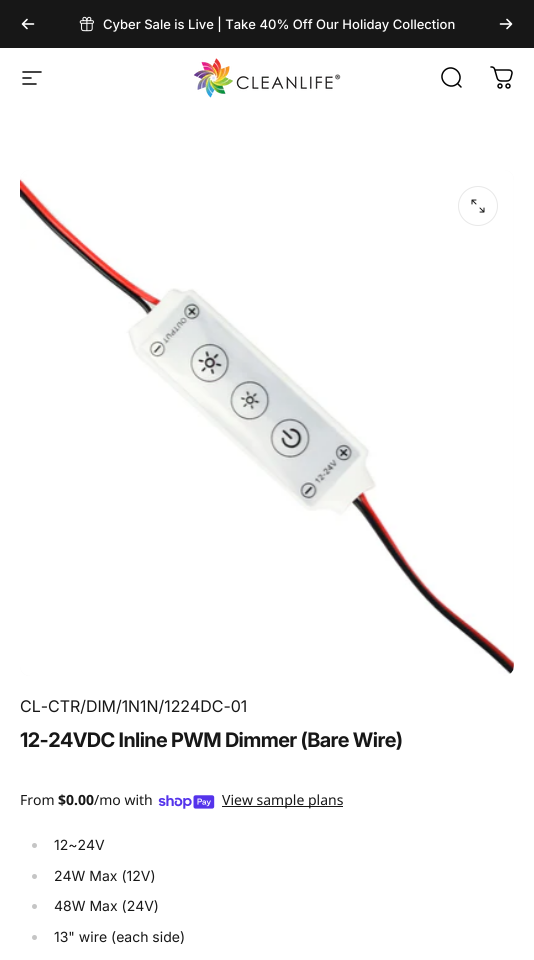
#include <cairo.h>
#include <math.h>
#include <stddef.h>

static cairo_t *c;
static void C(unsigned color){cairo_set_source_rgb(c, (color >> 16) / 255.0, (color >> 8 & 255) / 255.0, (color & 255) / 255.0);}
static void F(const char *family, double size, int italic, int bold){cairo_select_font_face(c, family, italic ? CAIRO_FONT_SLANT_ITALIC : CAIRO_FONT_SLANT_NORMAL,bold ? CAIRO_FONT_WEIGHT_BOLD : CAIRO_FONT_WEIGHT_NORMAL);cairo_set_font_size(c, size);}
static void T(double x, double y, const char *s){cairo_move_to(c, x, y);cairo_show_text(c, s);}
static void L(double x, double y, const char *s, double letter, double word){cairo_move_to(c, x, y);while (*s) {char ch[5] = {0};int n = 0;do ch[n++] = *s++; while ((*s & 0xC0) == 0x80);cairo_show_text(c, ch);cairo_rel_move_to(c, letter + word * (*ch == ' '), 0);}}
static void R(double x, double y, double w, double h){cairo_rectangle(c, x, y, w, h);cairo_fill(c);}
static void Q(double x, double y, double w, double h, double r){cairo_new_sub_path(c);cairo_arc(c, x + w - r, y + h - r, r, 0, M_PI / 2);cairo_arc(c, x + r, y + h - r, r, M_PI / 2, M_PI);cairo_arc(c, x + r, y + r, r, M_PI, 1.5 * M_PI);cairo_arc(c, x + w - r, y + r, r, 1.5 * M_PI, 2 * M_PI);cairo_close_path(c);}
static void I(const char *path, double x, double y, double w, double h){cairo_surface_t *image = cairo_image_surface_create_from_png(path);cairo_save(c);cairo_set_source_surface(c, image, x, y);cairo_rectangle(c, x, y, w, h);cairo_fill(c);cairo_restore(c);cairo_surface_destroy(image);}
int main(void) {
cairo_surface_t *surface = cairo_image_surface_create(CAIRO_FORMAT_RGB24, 534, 960);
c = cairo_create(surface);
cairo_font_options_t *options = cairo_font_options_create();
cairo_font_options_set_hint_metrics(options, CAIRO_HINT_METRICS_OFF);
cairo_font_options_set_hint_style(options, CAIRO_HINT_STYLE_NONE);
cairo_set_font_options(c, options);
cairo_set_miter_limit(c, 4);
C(0xffffff);
cairo_paint(c);
C(0x171717);
R(0,0,534,48);
cairo_new_path(c);
cairo_move_to(c,27,19.5);
cairo_line_to(c,22.5,24);
cairo_move_to(c,22.5,24);
cairo_line_to(c,27,28.5);
cairo_move_to(c,22.5,24);
cairo_line_to(c,33.5,24);
C(0xffffff);
cairo_set_line_width(c,1.6);
cairo_set_line_cap(c,CAIRO_LINE_CAP_ROUND);
cairo_set_line_join(c,CAIRO_LINE_JOIN_ROUND);
cairo_stroke(c);
I("1.png",79,16,15,16);
F("Inter Medium",13,0,0);
T(103,29,"Cyber Sale is Live | Take 40% Off Our Holiday Collection");
cairo_new_path(c);
cairo_move_to(c,500.5,24);
cairo_line_to(c,511.5,24);
cairo_move_to(c,511.5,24);
cairo_line_to(c,507,19.5);
cairo_move_to(c,511.5,24);
cairo_line_to(c,507,28.5);
cairo_stroke(c);
cairo_new_path(c);
cairo_move_to(c,23,72);
cairo_line_to(c,41,72);
cairo_move_to(c,23,78);
cairo_line_to(c,31,78);
cairo_move_to(c,23,84);
cairo_line_to(c,36,84);
C(0x000000);
cairo_set_line_width(c,1.5);
cairo_set_line_join(c,CAIRO_LINE_JOIN_MITER);
cairo_stroke(c);
I("2.png",193,58,148,40);
cairo_new_path(c);
cairo_move_to(c,461,87);
cairo_line_to(c,457.5,83.5);
cairo_move_to(c,457.5,83.5);
cairo_curve_to(c,465.5,75,453,62.5,444.5,70.5);
cairo_curve_to(c,436.5,79,449,91.5,457.5,83.5);
cairo_close_path(c);
cairo_stroke(c);
I("3.png",490,66,23,23);
C(0xfafafa);
Q(20,170,494,506,10);
cairo_fill(c);
I("4.png",20,170,494,506);
cairo_arc(c,478,206,19.5,0,2 * M_PI);
C(0xe8e8e8);
cairo_set_line_width(c,1);
cairo_set_line_cap(c,CAIRO_LINE_CAP_BUTT);
cairo_stroke(c);
I("5.png",471,199,14,14);
F("Inter",16,0,0);
C(0x171717);
T(20,712,"CL-CTR/DIM/1N1N/1224DC-01");
F("Inter",20,0,1);
L(20,747,"12-24VDC Inline PWM Dimmer (Bare Wire)",-.6,0);
F("Noto Sans",14,0,0);
T(20,805,"From");
F("Noto Sans",14,0,1);
T(58,805,"$0.00");
F("Noto Sans",14,0,0);
T(94,805,"/mo with");
I("6.png",158,795,57,14);
R(222,806,121,1);
T(222,805,"View sample plans");
C(0xc5c5c5);
cairo_new_path(c);
cairo_arc(c,34.5,845.5,2.5,0,2 * M_PI);
cairo_fill(c);
F("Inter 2",14,0,0);
C(0x171717);
T(54,850,"12~24V");
C(0xc5c5c5);
cairo_new_path(c);
cairo_arc(c,34.5,876.5,2.5,0,2 * M_PI);
cairo_fill(c);
C(0x171717);
T(54,881,"24W Max (12V)");
C(0xc5c5c5);
cairo_new_path(c);
cairo_arc(c,34.5,906.5,2.5,0,2 * M_PI);
cairo_fill(c);
C(0x171717);
T(54,911,"48W Max (24V)");
C(0xc5c5c5);
cairo_new_path(c);
cairo_arc(c,34.5,937.5,2.5,0,2 * M_PI);
cairo_fill(c);
C(0x171717);
T(54,942,"13\" wire (each side)");
cairo_surface_write_to_png(surface, "o.png");
cairo_font_options_destroy(options);
cairo_destroy(c);
cairo_surface_destroy(surface);
return 0;
}
